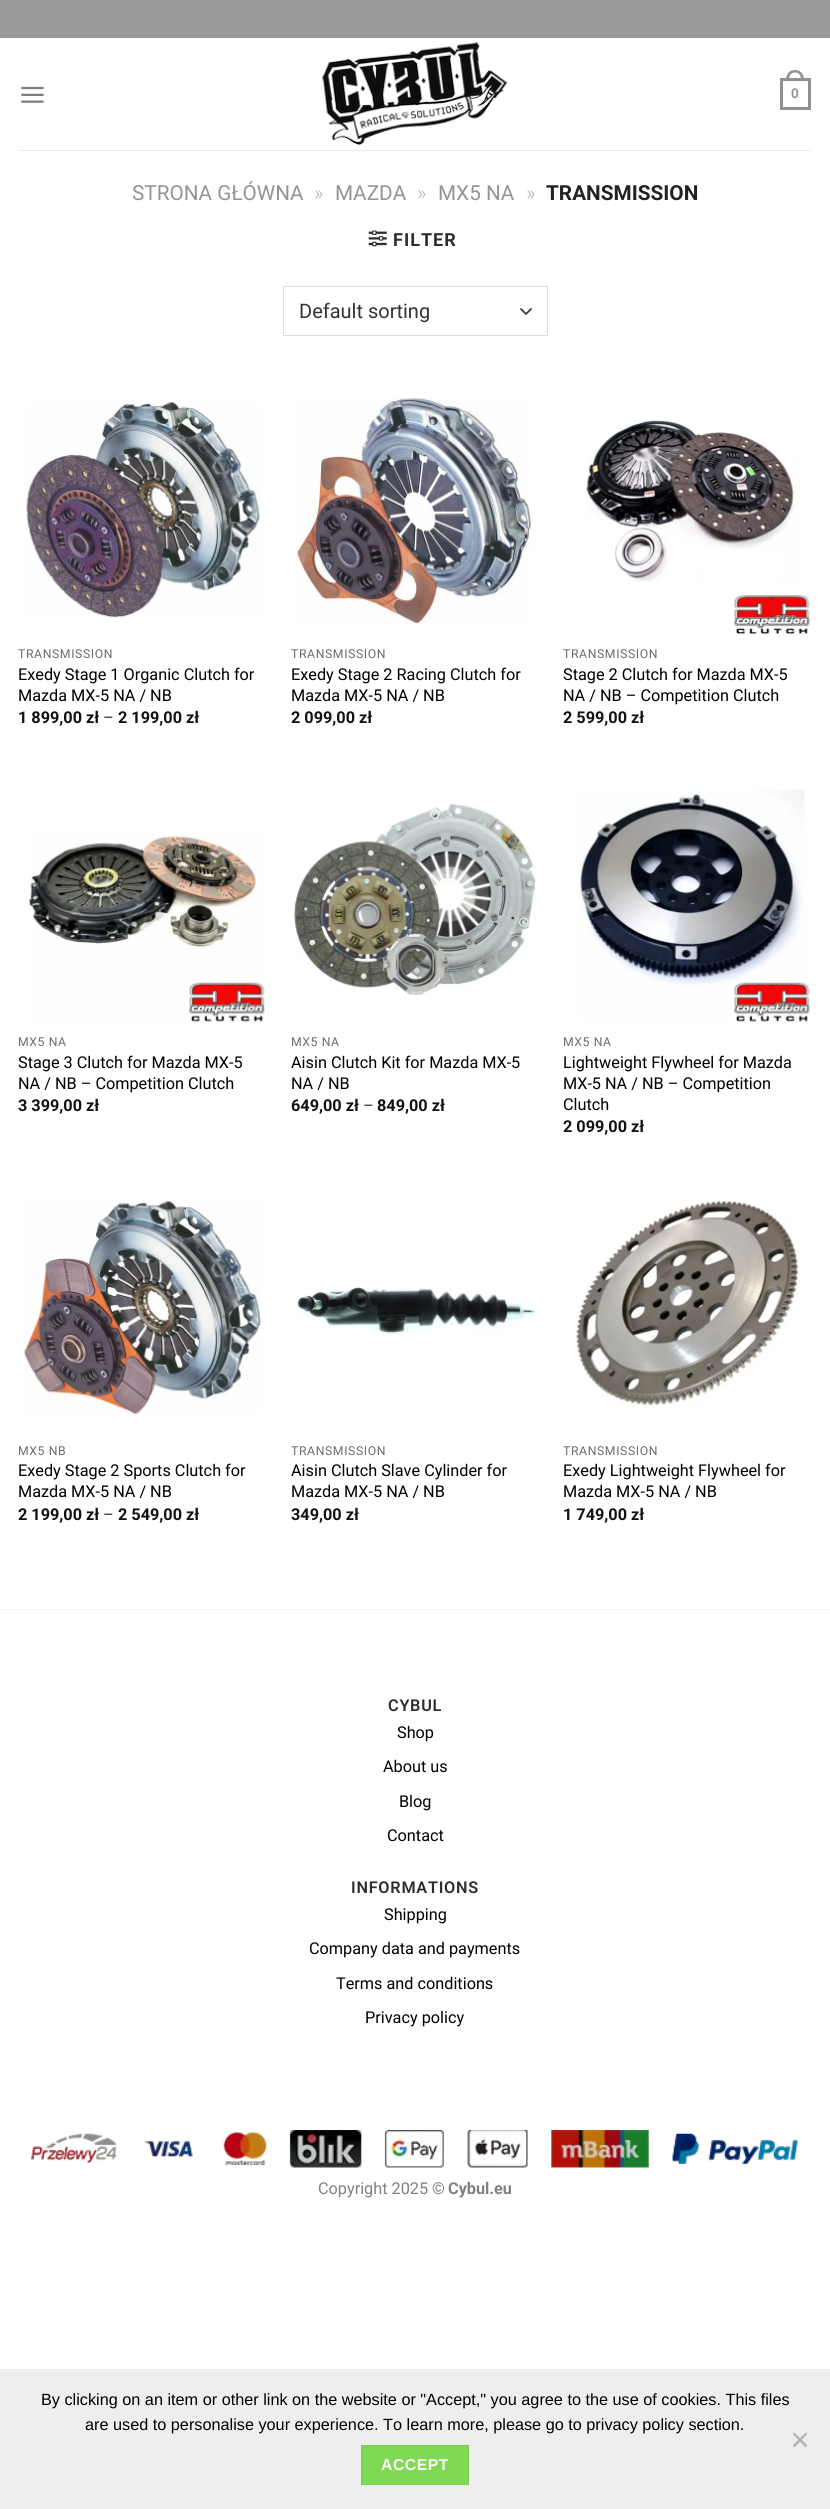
#include <cairo.h>
#include <math.h>
#include <stddef.h>

static cairo_t *c;
static void C(unsigned color){cairo_set_source_rgb(c, (color >> 16) / 255.0, (color >> 8 & 255) / 255.0, (color & 255) / 255.0);}
static void F(const char *family, double size, int italic, int bold){cairo_select_font_face(c, family, italic ? CAIRO_FONT_SLANT_ITALIC : CAIRO_FONT_SLANT_NORMAL,bold ? CAIRO_FONT_WEIGHT_BOLD : CAIRO_FONT_WEIGHT_NORMAL);cairo_set_font_size(c, size);}
static void T(double x, double y, const char *s){cairo_move_to(c, x, y);cairo_show_text(c, s);}
static void L(double x, double y, const char *s, double letter, double word){cairo_move_to(c, x, y);while (*s) {char ch[5] = {0};int n = 0;do ch[n++] = *s++; while ((*s & 0xC0) == 0x80);cairo_show_text(c, ch);cairo_rel_move_to(c, letter + word * (*ch == ' '), 0);}}
static void R(double x, double y, double w, double h){cairo_rectangle(c, x, y, w, h);cairo_fill(c);}
static void I(const char *path, double x, double y, double w, double h){cairo_surface_t *image = cairo_image_surface_create_from_png(path);cairo_save(c);cairo_set_source_surface(c, image, x, y);cairo_rectangle(c, x, y, w, h);cairo_fill(c);cairo_restore(c);cairo_surface_destroy(image);}
int main(void) {
cairo_surface_t *surface = cairo_image_surface_create(CAIRO_FORMAT_RGB24, 830, 2509);
c = cairo_create(surface);
cairo_font_options_t *options = cairo_font_options_create();
cairo_font_options_set_hint_metrics(options, CAIRO_HINT_METRICS_OFF);
cairo_font_options_set_hint_style(options, CAIRO_HINT_STYLE_NONE);
cairo_set_font_options(c, options);
cairo_set_miter_limit(c, 4);
C(0xffffff);
cairo_paint(c);
C(0x999999);
R(0,0,830,38);
I("1.png",21,86,23,17);
I("2.png",322,42,186,103);
cairo_rectangle(c,781.5,79.5,28,29);
C(0x919191);
cairo_set_line_width(c,3);
cairo_stroke(c);
cairo_set_fill_rule(c,CAIRO_FILL_RULE_EVEN_ODD);
cairo_new_path(c);
cairo_move_to(c,795,70);
cairo_curve_to(c,801,70,804,74.5,804,80);
cairo_line_to(c,786,80);
cairo_curve_to(c,786,74.5,789,70,795,70);
cairo_close_path(c);
cairo_move_to(c,795,72.5);
cairo_curve_to(c,799.5,72.5,801,76,801,80);
cairo_line_to(c,789,80);
cairo_curve_to(c,789,76,790.5,72.5,795,72.5);
cairo_close_path(c);
cairo_fill(c);
F("Liberation Sans",14,0,1);
C(0x949494);
T(791,98,"0");
C(0xeaeaea);
R(19,150,792,1);
F("Roboto",20.75,0,0);
C(0x949494);
T(132,200,"STRONA GŁÓWNA");
F("Roboto Light",20.75,0,0);
C(0xb2b2b2);
T(314,200,"»");
F("Roboto",20.75,0,0);
C(0x949494);
T(335,200,"MAZDA");
F("Roboto Light",20.75,0,0);
C(0xb2b2b2);
T(417,200,"»");
F("Roboto",20.75,0,0);
C(0x949494);
T(438,200,"MX5 NA");
F("Roboto Light",20.75,0,0);
C(0xb2b2b2);
T(526,200,"»");
F("Roboto",20.75,0,1);
C(0x222222);
T(546,200,"TRANSMISSION");
I("3.png",368,230,19,17);
F("Roboto",18,0,1);
C(0x2d2d2d);
L(393,246,"FILTER",1,0);
cairo_new_path(c);
cairo_move_to(c,521,309);
cairo_line_to(c,526,314);
cairo_line_to(c,531,309);
C(0x333333);
cairo_set_line_width(c,1.7);
cairo_set_line_cap(c,CAIRO_LINE_CAP_ROUND);
cairo_set_line_join(c,CAIRO_LINE_JOIN_ROUND);
cairo_stroke(c);
cairo_rectangle(c,283.5,286.5,264,49);
C(0xdddddd);
cairo_set_line_width(c,1);
cairo_set_line_cap(c,CAIRO_LINE_CAP_BUTT);
cairo_set_line_join(c,CAIRO_LINE_JOIN_MITER);
cairo_stroke(c);
F("Roboto",20,0,0);
C(0x333333);
T(299,318,"Default sorting");
I("4.png",26,402,235,216);
F("Roboto",12.25,0,0);
C(0x6c6c6c);
L(18,658,"TRANSMISSION",.6,0);
F("Roboto",16.25,0,0);
C(0x000000);
T(18,680,"Exedy Stage 1 Organic Clutch for");
T(18,701,"Mazda MX-5 NA / NB");
F("Roboto",16.25,0,1);
C(0x111111);
T(18,723,"1 899,00 zł");
F("Roboto",16.25,0,0);
C(0x2d2d2d);
T(103,723,"–");
F("Roboto",16.25,0,1);
C(0x111111);
T(118,723,"2 199,00 zł");
I("5.png",297,398,235,227);
F("Roboto",12.25,0,0);
C(0x6c6c6c);
L(291,658,"TRANSMISSION",.6,0);
F("Roboto",16.25,0,0);
C(0x000000);
T(291,680,"Exedy Stage 2 Racing Clutch for");
T(291,701,"Mazda MX-5 NA / NB");
F("Roboto",16.25,0,1);
C(0x111111);
T(291,723,"2 099,00 zł");
I("6.png",586,420,225,215);
F("Roboto",12.25,0,0);
C(0x6c6c6c);
L(563,658,"TRANSMISSION",.6,0);
F("Roboto",16.25,0,0);
C(0x000000);
T(563,680,"Stage 2 Clutch for Mazda MX-5");
T(563,701,"NA / NB – Competition Clutch");
F("Roboto",16.25,0,1);
C(0x111111);
T(563,723,"2 599,00 zł");
I("7.png",28,833,237,189);
F("Roboto",12.25,0,0);
C(0x6c6c6c);
L(18,1046,"MX5 NA",.6,0);
F("Roboto",16.25,0,0);
C(0x000000);
T(18,1068,"Stage 3 Clutch for Mazda MX-5");
T(18,1089,"NA / NB – Competition Clutch");
F("Roboto",16.25,0,1);
C(0x111111);
T(18,1111,"3 399,00 zł");
I("8.png",294,803,242,192);
F("Roboto",12.25,0,0);
C(0x6c6c6c);
L(291,1046,"MX5 NA",.6,0);
F("Roboto",16.25,0,0);
C(0x000000);
T(291,1068,"Aisin Clutch Kit for Mazda MX-5");
T(291,1089,"NA / NB");
F("Roboto",16.25,0,1);
C(0x111111);
T(291,1111,"649,00 zł");
F("Roboto",16.25,0,0);
C(0x2d2d2d);
T(363,1111,"–");
F("Roboto",16.25,0,1);
C(0x111111);
T(377,1111,"849,00 zł");
I("9.png",579,789,232,233);
F("Roboto",12.25,0,0);
C(0x6c6c6c);
L(563,1046,"MX5 NA",.6,0);
F("Roboto",16.25,0,0);
C(0x000000);
T(563,1068,"Lightweight Flywheel for Mazda");
T(563,1089,"MX-5 NA / NB – Competition");
T(563,1110,"Clutch");
F("Roboto",16.25,0,1);
C(0x111111);
T(563,1132,"2 099,00 zł");
I("10.png",23,1200,238,215);
F("Roboto",12.25,0,0);
C(0x6c6c6c);
L(18,1455,"MX5 NB",.6,0);
F("Roboto",16.25,0,0);
C(0x000000);
T(18,1476,"Exedy Stage 2 Sports Clutch for");
T(18,1497,"Mazda MX-5 NA / NB");
F("Roboto",16.25,0,1);
C(0x111111);
T(18,1520,"2 199,00 zł");
F("Roboto",16.25,0,0);
C(0x2d2d2d);
T(103,1520,"–");
F("Roboto",16.25,0,1);
C(0x111111);
T(118,1520,"2 549,00 zł");
I("11.png",295,1286,241,50);
F("Roboto",12.25,0,0);
C(0x6c6c6c);
L(291,1455,"TRANSMISSION",.6,0);
F("Roboto",16.25,0,0);
C(0x000000);
T(291,1476,"Aisin Clutch Slave Cylinder for");
T(291,1497,"Mazda MX-5 NA / NB");
F("Roboto",16.25,0,1);
C(0x111111);
T(291,1520,"349,00 zł");
I("12.png",575,1200,225,207);
F("Roboto",12.25,0,0);
C(0x6c6c6c);
L(563,1455,"TRANSMISSION",.6,0);
F("Roboto",16.25,0,0);
C(0x000000);
T(563,1476,"Exedy Lightweight Flywheel for");
T(563,1497,"Mazda MX-5 NA / NB");
F("Roboto",16.25,0,1);
C(0x111111);
T(563,1520,"1 749,00 zł");
C(0xf2f2f2);
R(0,1609,830,1);
F("Roboto SemiBold",16.25,0,0);
C(0x2d2d2d);
L(388,1711,"CYBUL",.75,0);
F("Roboto",16.25,0,0);
C(0x000000);
T(397,1738,"Shop");
T(383,1772,"About us");
T(399,1807,"Blog");
T(387,1841,"Contact");
F("Roboto SemiBold",16.25,0,0);
C(0x2d2d2d);
L(351,1893,"INFORMATIONS",.75,0);
F("Roboto",16.25,0,0);
C(0x000000);
T(384,1920,"Shipping");
T(309,1954,"Company data and payments");
T(336,1989,"Terms and conditions");
T(365,2023,"Privacy policy");
I("13.png",31,2130,767,38);
C(0x808080);
T(318,2194,"Copyright 2025 ©");
F("Roboto",16.25,0,1);
T(448,2194,"Cybul.eu");
C(0xeeeeee);
R(0,2369,830,140);
F("Liberation Sans",16.25,0,0);
C(0x000000);
T(41,2405,"By clicking on an item or other link on the website or \"Accept,\" you agree to the use of cookies. This files");
T(85,2430,"are used to personalise your experience. To learn more, please go to privacy policy section.");
C(0xb7b7b7);
cairo_set_fill_rule(c,CAIRO_FILL_RULE_WINDING);
cairo_new_path(c);
cairo_move_to(c,805.5,2432.5);
cairo_line_to(c,807.5,2434);
cairo_line_to(c,794.5,2447.5);
cairo_line_to(c,792.5,2445.5);
cairo_close_path(c);
cairo_fill(c);
cairo_new_path(c);
cairo_move_to(c,792.5,2434);
cairo_line_to(c,794.5,2432.5);
cairo_line_to(c,807.5,2445.5);
cairo_line_to(c,805.5,2447.5);
cairo_close_path(c);
cairo_fill(c);
C(0x80d953);
cairo_rectangle(c,361.5,2445.5,107,39);
cairo_fill_preserve(c);
C(0x7ace4f);
cairo_stroke(c);
F("Liberation Sans",15.75,0,1);
C(0xffffff);
L(381,2470,"ACCEPT",.5,0);
cairo_surface_write_to_png(surface, "o.png");
cairo_font_options_destroy(options);
cairo_destroy(c);
cairo_surface_destroy(surface);
return 0;
}
